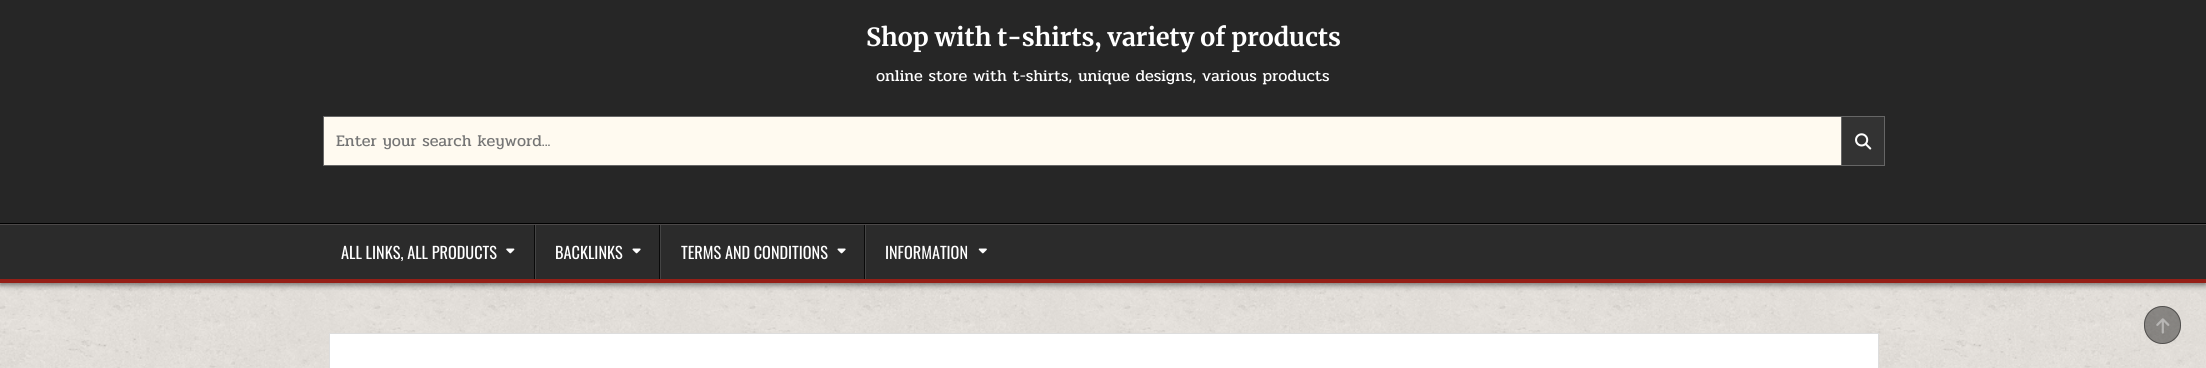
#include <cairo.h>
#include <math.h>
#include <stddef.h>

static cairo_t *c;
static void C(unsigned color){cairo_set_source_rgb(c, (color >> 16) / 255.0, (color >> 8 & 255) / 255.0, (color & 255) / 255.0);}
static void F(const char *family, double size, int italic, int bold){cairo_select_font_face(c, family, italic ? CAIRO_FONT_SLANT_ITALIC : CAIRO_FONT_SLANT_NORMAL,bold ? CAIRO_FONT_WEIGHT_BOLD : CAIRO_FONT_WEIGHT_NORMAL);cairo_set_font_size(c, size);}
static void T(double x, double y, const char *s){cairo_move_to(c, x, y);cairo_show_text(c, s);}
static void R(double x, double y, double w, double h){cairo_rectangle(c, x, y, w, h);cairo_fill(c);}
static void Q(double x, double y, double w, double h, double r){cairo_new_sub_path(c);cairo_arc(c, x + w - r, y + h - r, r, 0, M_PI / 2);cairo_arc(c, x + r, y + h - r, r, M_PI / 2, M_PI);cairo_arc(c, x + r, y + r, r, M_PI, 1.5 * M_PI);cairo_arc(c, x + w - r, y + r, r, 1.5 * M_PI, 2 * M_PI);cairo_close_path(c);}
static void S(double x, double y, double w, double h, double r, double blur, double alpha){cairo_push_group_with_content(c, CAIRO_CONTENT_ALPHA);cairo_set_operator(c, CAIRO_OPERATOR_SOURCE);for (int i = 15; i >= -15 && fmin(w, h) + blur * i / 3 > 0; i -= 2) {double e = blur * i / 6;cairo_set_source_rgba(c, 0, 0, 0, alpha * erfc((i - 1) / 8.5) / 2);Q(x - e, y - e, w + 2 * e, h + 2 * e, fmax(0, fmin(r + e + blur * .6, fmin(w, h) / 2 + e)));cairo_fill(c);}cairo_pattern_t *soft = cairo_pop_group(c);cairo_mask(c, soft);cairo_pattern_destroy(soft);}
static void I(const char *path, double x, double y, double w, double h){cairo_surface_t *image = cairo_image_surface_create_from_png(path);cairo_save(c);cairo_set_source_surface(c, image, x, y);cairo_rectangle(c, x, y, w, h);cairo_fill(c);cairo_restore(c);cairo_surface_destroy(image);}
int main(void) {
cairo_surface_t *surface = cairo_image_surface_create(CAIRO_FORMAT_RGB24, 2206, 368);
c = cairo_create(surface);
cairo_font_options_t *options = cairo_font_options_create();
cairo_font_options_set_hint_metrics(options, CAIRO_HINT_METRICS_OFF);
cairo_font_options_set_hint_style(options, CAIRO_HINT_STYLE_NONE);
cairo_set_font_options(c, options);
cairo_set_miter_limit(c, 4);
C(0xffffff);
cairo_paint(c);
I("1.png",0,283,2206,85);
C(0x000000);
S(0,226,2206,59,0,3,.5);
C(0x262626);
R(0,0,2206,223);
C(0x000000);
R(0,223,2206,1);
F("Merriweather",25,0,1);
C(0xffffff);
T(866,46,"Shop with t-shirts, variety of products");
F("Pridi",16.25,0,0);
T(876,81,"online store with t-shirts, unique designs, various products");
C(0xfffaf0);
R(324,117,1517,48);
cairo_rectangle(c,323.5,116.5,1561,49);
C(0x666666);
cairo_set_line_width(c,1);
cairo_stroke(c);
C(0x757575);
T(336,146,"Enter your search keyword...");
C(0x333333);
cairo_rectangle(c,1841.5,116.5,43,49);
cairo_fill_preserve(c);
C(0x666666);
cairo_stroke(c);
I("2.png",1855,133,17,17);
C(0x2b2b2b);
R(0,225,2206,54);
C(0x4c4949);
R(0,224,2206,1);
C(0x951f17);
R(0,279,2206,4);
C(0x090909);
R(534,225,1,54);
F("Oswald",16.25,0,0);
C(0xffffff);
T(341,259,"ALL LINKS, ALL PRODUCTS");
I("3.png",506,248,9,6);
C(0x090909);
R(659,225,1,54);
C(0x444444);
R(535,225,1,54);
C(0xffffff);
T(555,259,"BACKLINKS");
I("4.png",632,248,9,6);
C(0x090909);
R(864,225,1,54);
C(0x444444);
R(660,225,1,54);
C(0xffffff);
T(681,259,"TERMS AND CONDITIONS");
I("4.png",837,248,9,6);
C(0x444444);
R(865,225,1,54);
C(0xffffff);
T(885,259,"INFORMATION");
I("5.png",978,248,9,6);
cairo_set_source_rgba(c,0,0,0,0.4);
Q(2144,306,37,38,18.5);
cairo_fill(c);
Q(2144.5,306.5,36,37,18);
cairo_stroke(c);
I("6.png",2156,318,14,16);
C(0xffffff);
cairo_rectangle(c,329.5,333.5,1549,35);
cairo_fill_preserve(c);
C(0xdddddd);
cairo_stroke(c);
cairo_surface_write_to_png(surface, "o.png");
cairo_font_options_destroy(options);
cairo_destroy(c);
cairo_surface_destroy(surface);
return 0;
}
